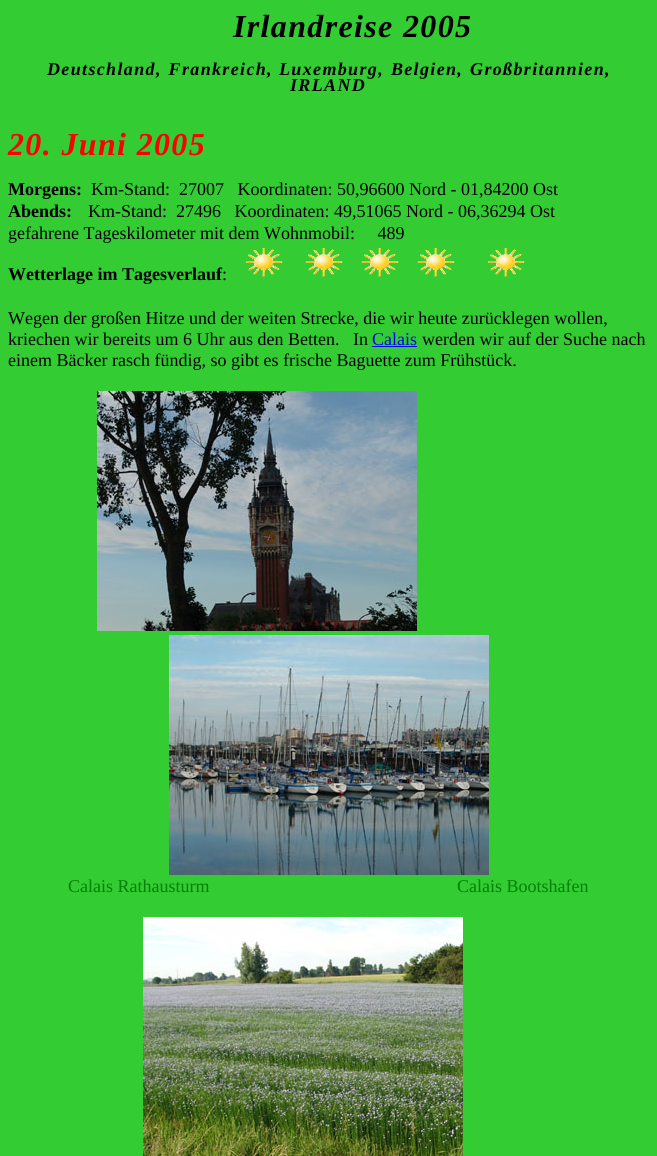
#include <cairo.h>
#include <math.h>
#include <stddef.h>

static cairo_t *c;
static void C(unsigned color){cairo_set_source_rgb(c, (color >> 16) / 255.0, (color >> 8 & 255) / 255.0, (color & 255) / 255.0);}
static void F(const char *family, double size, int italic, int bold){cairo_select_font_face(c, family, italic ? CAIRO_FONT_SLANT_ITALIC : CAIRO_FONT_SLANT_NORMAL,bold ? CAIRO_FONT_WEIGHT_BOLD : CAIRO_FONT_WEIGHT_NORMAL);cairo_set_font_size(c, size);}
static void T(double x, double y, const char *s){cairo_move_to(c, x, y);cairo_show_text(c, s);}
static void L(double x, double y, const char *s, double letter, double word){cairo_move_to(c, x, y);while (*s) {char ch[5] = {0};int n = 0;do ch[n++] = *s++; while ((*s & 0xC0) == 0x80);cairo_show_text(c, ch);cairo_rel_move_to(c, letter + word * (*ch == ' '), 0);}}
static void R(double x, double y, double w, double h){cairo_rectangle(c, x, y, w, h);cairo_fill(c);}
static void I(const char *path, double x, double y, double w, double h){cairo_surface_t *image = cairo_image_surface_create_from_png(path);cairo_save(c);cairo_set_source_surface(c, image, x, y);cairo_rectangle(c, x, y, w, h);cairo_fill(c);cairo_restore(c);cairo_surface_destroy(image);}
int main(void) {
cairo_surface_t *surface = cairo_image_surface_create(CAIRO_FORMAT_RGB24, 657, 1156);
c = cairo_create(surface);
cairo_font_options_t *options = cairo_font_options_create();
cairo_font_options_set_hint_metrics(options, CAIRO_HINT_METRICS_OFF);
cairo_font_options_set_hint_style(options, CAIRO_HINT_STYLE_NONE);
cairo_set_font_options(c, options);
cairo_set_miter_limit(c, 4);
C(0x33cc33);
cairo_paint(c);
F("Liberation Serif",32,1,1);
C(0x000000);
L(233,37,"Irlandreise 2005",1.35,0);
F("Liberation Serif",18,1,1);
L(47,75,"Deutschland, Frankreich,",1.35,1);
L(279,75,"Luxemburg, Belgien, Großbritannien,",1.35,1);
L(290,91,"IRLAND",1.35,0);
F("Liberation Serif",32,1,1);
C(0xff0000);
L(8,155,"20. Juni 2005",1.35,0);
F("Liberation Serif",18,0,1);
C(0x000000);
T(8,195,"Morgens:");
F("Liberation Serif",18,0,0);
T(91,195,"Km-Stand:  27007   Koordinaten: 50,96600 Nord - 01,84200 Ost");
F("Liberation Serif",18,0,1);
T(8,217,"Abends:");
F("Liberation Serif",18,0,0);
T(88,217,"Km-Stand:");
T(176,217,"27496   Koordinaten: 49,51065 Nord - 06,36294 Ost");
T(8,239,"gefahrene Tageskilometer mit dem Wohnmobil:     489");
F("Liberation Serif",18,0,1);
T(8,280,"Wetterlage im Tagesverlauf");
F("Liberation Serif",18,0,0);
T(222,280,":");
I("1.png",245,248,38,29);
I("1.png",305,248,38,29);
I("1.png",361,248,38,29);
I("1.png",417,248,38,29);
I("1.png",487,248,38,29);
T(8,324,"Wegen der großen Hitze und der weiten Strecke, die wir heute zurücklegen wollen,");
T(8,345,"kriechen wir bereits um 6 Uhr aus den Betten.   In");
C(0x0000ee);
T(372,345,"Calais");
R(372,346,45,1);
C(0x000000);
T(422,345,"werden wir auf der Suche nach");
T(8,366,"einem Bäcker rasch fündig, so gibt es frische Baguette zum Frühstück.");
I("2.png",97,391,320,240);
I("3.png",169,635,320,240);
C(0x008000);
T(68,892,"Calais Rathausturm");
T(457,892,"Calais Bootshafen");
I("4.png",143,917,320,239);
cairo_surface_write_to_png(surface, "o.png");
cairo_font_options_destroy(options);
cairo_destroy(c);
cairo_surface_destroy(surface);
return 0;
}
